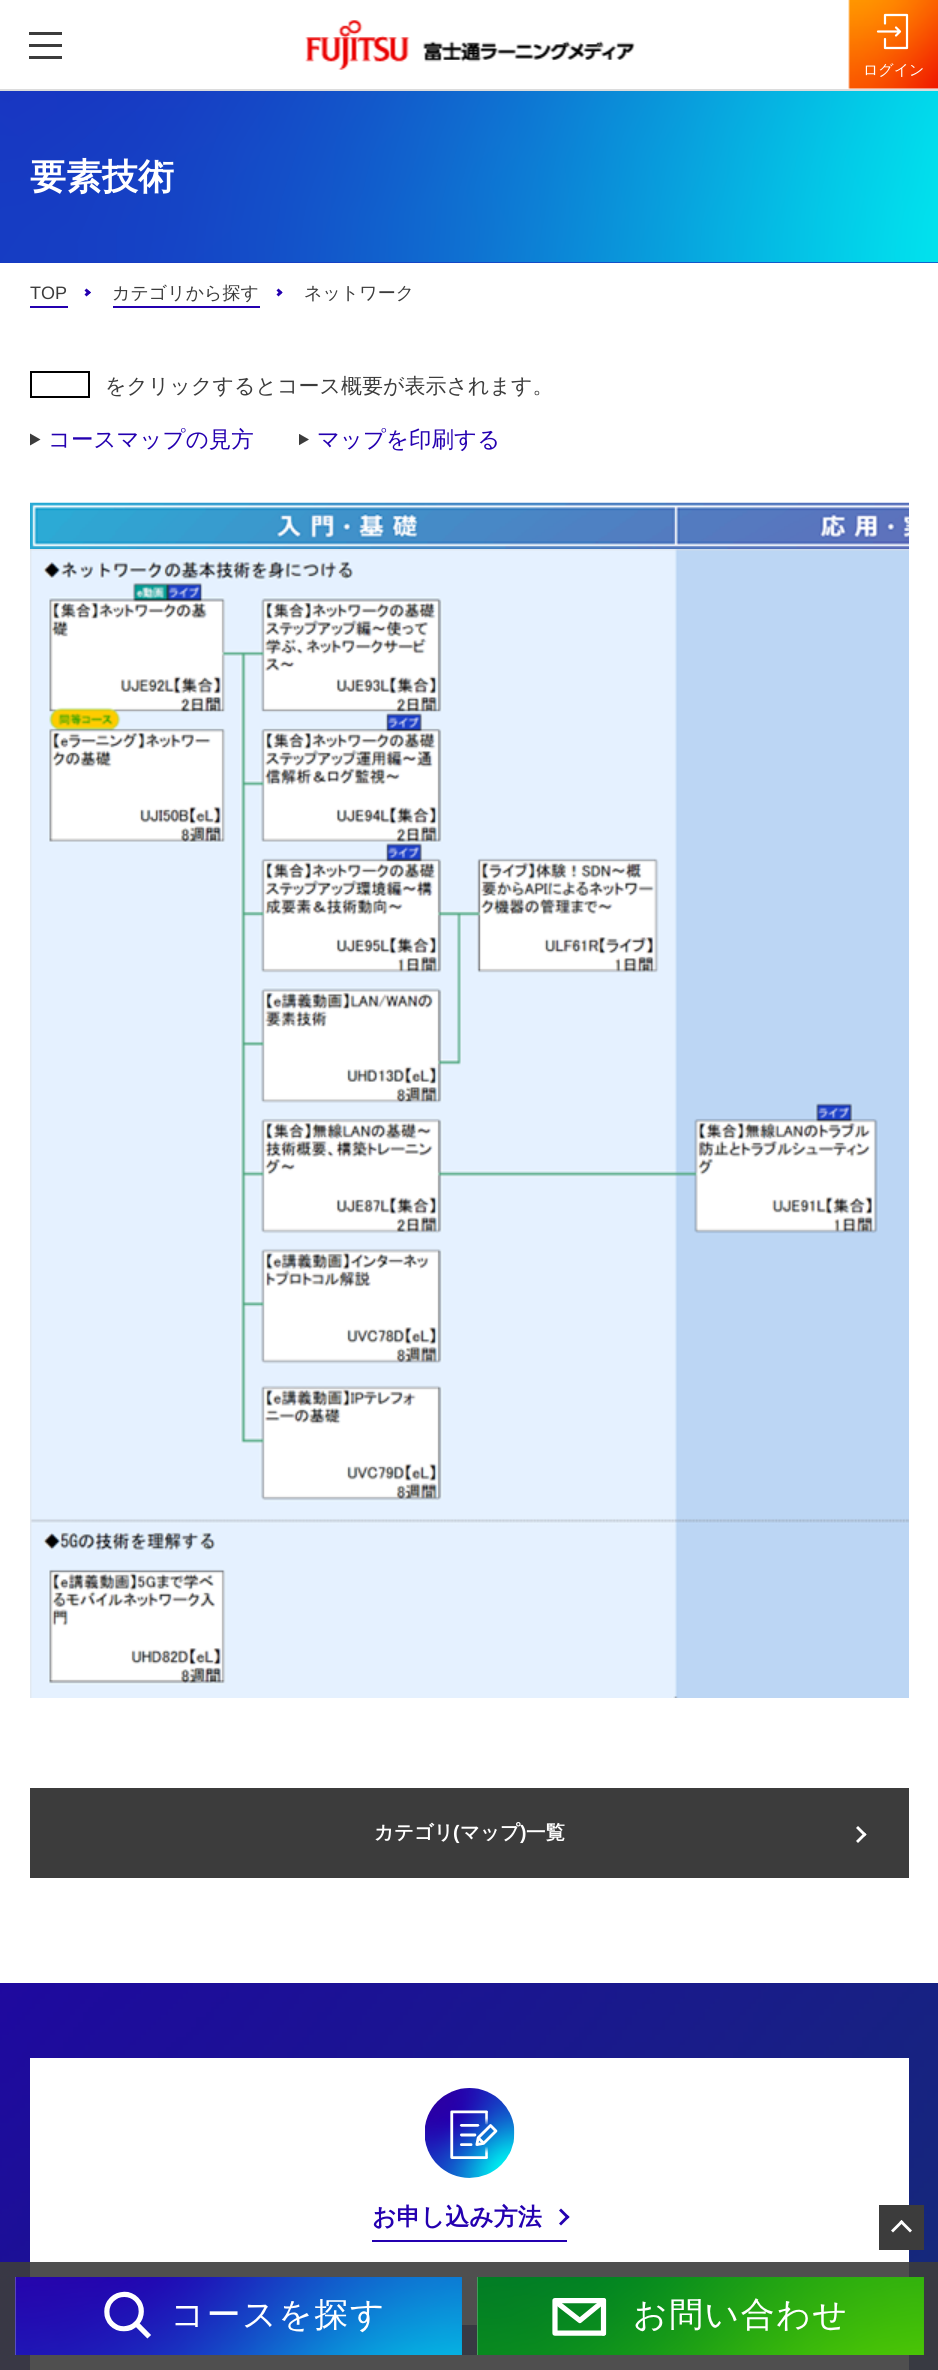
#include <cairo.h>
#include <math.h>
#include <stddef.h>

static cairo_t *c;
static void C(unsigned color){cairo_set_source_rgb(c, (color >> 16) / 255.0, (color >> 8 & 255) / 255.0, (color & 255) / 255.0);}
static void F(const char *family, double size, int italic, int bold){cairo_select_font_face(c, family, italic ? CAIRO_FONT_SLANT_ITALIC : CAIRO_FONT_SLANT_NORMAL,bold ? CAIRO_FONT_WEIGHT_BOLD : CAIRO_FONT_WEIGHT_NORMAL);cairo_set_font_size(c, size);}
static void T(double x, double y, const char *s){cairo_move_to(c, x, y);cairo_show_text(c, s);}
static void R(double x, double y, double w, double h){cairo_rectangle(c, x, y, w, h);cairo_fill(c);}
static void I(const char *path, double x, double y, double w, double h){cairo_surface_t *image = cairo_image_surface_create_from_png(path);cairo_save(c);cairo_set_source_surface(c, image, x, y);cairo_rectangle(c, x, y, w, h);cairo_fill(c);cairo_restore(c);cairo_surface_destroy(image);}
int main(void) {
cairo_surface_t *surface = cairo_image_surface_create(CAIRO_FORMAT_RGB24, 938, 2370);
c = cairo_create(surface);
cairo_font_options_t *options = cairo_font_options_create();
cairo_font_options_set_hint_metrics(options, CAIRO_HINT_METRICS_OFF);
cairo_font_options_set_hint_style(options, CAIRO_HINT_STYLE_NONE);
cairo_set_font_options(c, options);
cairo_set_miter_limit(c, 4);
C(0xffffff);
cairo_paint(c);
C(0xdcdcdc);
R(0,89,938,2);
C(0x3c3c3c);
R(29,32,33,3);
R(29,44,33,3);
R(29,56,33,3);
I("1.png",305,20,330,50);
I("2.png",848,0,90,89);
cairo_new_path(c);
cairo_move_to(c,896,27.5);
cairo_line_to(c,900,31.5);
cairo_line_to(c,896,35.5);
cairo_move_to(c,900,31.5);
cairo_line_to(c,878,31.5);
cairo_move_to(c,885,39);
cairo_line_to(c,885,48);
cairo_line_to(c,907,48);
cairo_line_to(c,907,15);
cairo_line_to(c,885,15);
cairo_line_to(c,885,23.5);
C(0xffffff);
cairo_set_line_width(c,2.2);
cairo_set_line_cap(c,CAIRO_LINE_CAP_ROUND);
cairo_set_line_join(c,CAIRO_LINE_JOIN_ROUND);
cairo_stroke(c);
F("WenQuanYi Zen Hei Medium",15,0,0);
T(863,75,"ログイン");
C(0x163bc3);
R(0,262,938,1);
I("3.png",0,91,938,172);
F("WenQuanYi Zen Hei",36,0,1);
C(0xffffff);
T(30,189,"要素技術");
F("Liberation Sans",18,0,0);
C(0x3c3c3c);
T(30,299,"TOP");
C(0x2400b0);
cairo_new_path(c);
cairo_move_to(c,84.5,290.5);
cairo_line_to(c,86.5,288.5);
cairo_line_to(c,91,292.5);
cairo_line_to(c,88.5,294.5);
cairo_close_path(c);
cairo_fill(c);
cairo_new_path(c);
cairo_move_to(c,84.5,294.5);
cairo_line_to(c,88.5,290.5);
cairo_line_to(c,91,292.5);
cairo_line_to(c,86.5,296.5);
cairo_close_path(c);
cairo_fill(c);
R(30,306,38,2);
F("WenQuanYi Zen Hei Medium",18,0,0);
C(0x3c3c3c);
T(112,299,"カテゴリから探す");
C(0x2400b0);
cairo_new_path(c);
cairo_move_to(c,276.5,290.5);
cairo_line_to(c,278.5,288.5);
cairo_line_to(c,282.5,292.5);
cairo_line_to(c,280.5,294.5);
cairo_close_path(c);
cairo_fill(c);
cairo_new_path(c);
cairo_move_to(c,276.5,294.5);
cairo_line_to(c,280.5,290.5);
cairo_line_to(c,282.5,292.5);
cairo_line_to(c,278.5,296.5);
cairo_close_path(c);
cairo_fill(c);
R(113,306,147,2);
C(0x3c3c3c);
T(304,299,"ネットワーク");
cairo_rectangle(c,31,372,58,25);
C(0x000000);
cairo_set_line_width(c,2);
cairo_set_line_cap(c,CAIRO_LINE_CAP_BUTT);
cairo_set_line_join(c,CAIRO_LINE_JOIN_MITER);
cairo_stroke(c);
F("WenQuanYi Zen Hei Medium",21,0,0);
C(0x3c3c3c);
T(105,393,"をクリックするとコース概要が表示されます。");
F("WenQuanYi Zen Hei Medium",22.5,0,0);
C(0x2400b0);
T(48,447,"コースマップの見方");
C(0x3c3c3c);
cairo_new_path(c);
cairo_move_to(c,30,433.5);
cairo_line_to(c,30,445.5);
cairo_line_to(c,40.5,439.5);
cairo_close_path(c);
cairo_fill(c);
C(0x2400b0);
T(317,447,"マップを印刷する");
cairo_save(c);
cairo_rectangle(c,299,434,10,12);
cairo_clip(c);
C(0x3c3c3c);
cairo_new_path(c);
cairo_move_to(c,298.5,433.5);
cairo_line_to(c,298.5,445.5);
cairo_line_to(c,309,439.5);
cairo_close_path(c);
cairo_fill(c);
cairo_restore(c);
I("4.png",30,502,879,47);
I("5.png",30,549,879,1149);
C(0x3c3c3c);
R(30,1788,879,90);
F("WenQuanYi Zen Hei",19.5,0,1);
C(0xffffff);
T(374,1839,"カテゴリ");
F("Liberation Sans",19.5,0,1);
T(453,1839,"(");
F("WenQuanYi Zen Hei",19.5,0,1);
T(460,1839,"マップ");
F("Liberation Sans",19.5,0,1);
T(520,1839,")");
F("WenQuanYi Zen Hei",19.5,0,1);
T(526,1839,"一覧");
cairo_new_path(c);
cairo_move_to(c,856,1828);
cairo_line_to(c,858,1826);
cairo_line_to(c,866.5,1834.5);
cairo_line_to(c,864.5,1836.5);
cairo_close_path(c);
cairo_fill(c);
cairo_new_path(c);
cairo_move_to(c,856,1841);
cairo_line_to(c,864.5,1832.5);
cairo_line_to(c,866.5,1834.5);
cairo_line_to(c,858,1843);
cairo_close_path(c);
cairo_fill(c);
I("6.png",0,1983,938,387);
R(30,2058,879,267);
I("7.png",425,2088,90,90);
C(0x2400b0);
R(372,2240,195,2);
F("WenQuanYi Zen Hei",24,0,1);
T(372,2225,"お申し込み方法");
cairo_new_path(c);
cairo_move_to(c,559,2210.5);
cairo_line_to(c,561,2208.5);
cairo_line_to(c,569.5,2217);
cairo_line_to(c,567.5,2219);
cairo_close_path(c);
cairo_fill(c);
cairo_new_path(c);
cairo_move_to(c,559,2223.5);
cairo_line_to(c,567.5,2215);
cairo_line_to(c,569.5,2217);
cairo_line_to(c,561,2225.5);
cairo_close_path(c);
cairo_fill(c);
C(0xffffff);
R(30,2355,879,15);
C(0x3c3c3c);
R(879,2205,45,45);
C(0xffffff);
cairo_new_path(c);
cairo_move_to(c,903.5,2222);
cairo_line_to(c,893,2232.5);
cairo_line_to(c,891,2230.5);
cairo_line_to(c,901.5,2220);
cairo_close_path(c);
cairo_fill(c);
cairo_new_path(c);
cairo_move_to(c,912,2230.5);
cairo_line_to(c,910,2232.5);
cairo_line_to(c,899.5,2222);
cairo_line_to(c,901.5,2220);
cairo_close_path(c);
cairo_fill(c);
cairo_set_source_rgba(c,0.235,0.235,0.235,0.9);
R(0,2262,938,108);
I("8.png",15,2277,447,78);
I("9.png",477,2277,447,78);
cairo_surface_write_to_png(surface, "o.png");
cairo_font_options_destroy(options);
cairo_destroy(c);
cairo_surface_destroy(surface);
return 0;
}
